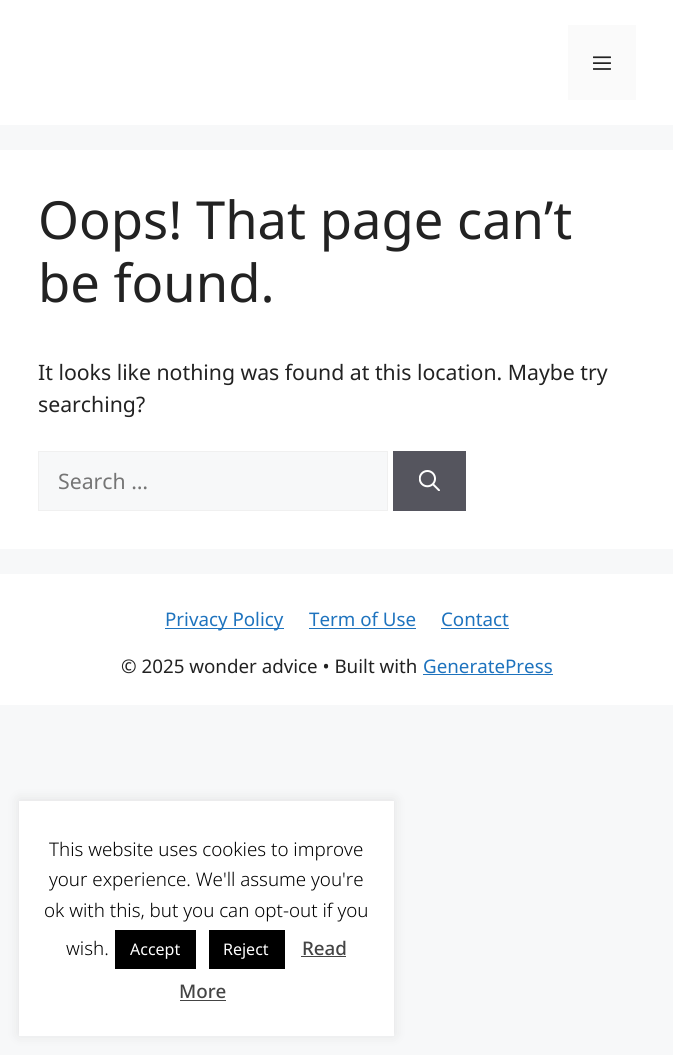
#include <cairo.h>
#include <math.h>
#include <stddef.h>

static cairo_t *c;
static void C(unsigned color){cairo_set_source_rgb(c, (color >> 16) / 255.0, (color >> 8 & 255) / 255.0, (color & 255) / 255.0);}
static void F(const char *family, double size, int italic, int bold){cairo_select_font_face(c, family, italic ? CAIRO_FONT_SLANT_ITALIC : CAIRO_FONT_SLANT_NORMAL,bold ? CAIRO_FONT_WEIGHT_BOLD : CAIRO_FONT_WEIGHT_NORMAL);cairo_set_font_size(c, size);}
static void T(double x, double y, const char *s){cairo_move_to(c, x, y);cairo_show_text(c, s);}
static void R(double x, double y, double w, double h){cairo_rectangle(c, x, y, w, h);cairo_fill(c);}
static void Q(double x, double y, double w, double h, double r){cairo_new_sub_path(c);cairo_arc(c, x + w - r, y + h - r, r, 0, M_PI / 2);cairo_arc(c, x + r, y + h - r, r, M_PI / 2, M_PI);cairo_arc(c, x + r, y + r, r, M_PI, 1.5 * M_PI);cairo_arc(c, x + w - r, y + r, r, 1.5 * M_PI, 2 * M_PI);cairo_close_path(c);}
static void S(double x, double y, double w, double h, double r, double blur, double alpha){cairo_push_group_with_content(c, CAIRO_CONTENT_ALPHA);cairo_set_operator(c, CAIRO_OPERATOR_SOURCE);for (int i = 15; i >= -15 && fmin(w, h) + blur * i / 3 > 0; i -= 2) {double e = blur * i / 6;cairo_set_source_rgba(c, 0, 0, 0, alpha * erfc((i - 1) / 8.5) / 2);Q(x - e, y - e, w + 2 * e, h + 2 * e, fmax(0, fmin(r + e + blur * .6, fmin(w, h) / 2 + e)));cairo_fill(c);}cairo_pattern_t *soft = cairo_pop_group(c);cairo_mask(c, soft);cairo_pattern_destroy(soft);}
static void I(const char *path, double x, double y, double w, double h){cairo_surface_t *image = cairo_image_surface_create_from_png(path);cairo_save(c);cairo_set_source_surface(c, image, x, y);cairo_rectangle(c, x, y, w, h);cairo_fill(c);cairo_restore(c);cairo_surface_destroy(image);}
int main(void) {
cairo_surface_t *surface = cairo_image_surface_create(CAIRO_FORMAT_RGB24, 673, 1055);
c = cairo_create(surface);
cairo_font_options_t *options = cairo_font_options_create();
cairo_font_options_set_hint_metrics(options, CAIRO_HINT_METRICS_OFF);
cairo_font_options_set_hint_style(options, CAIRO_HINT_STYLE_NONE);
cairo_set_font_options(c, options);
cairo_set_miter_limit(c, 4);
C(0xf7f8f9);
cairo_paint(c);
C(0xffffff);
R(0,0,673,125);
C(0xfafafa);
R(568,25,68,75);
I("1.png",593,56,18,14);
C(0xffffff);
R(0,150,673,399);
F("Noto Sans",52.5,0,0);
C(0x222222);
T(38,239,"Oops! That page can’t");
T(38,302,"be found.");
F("Noto Sans",21.25,0,0);
T(38,380,"It looks like nothing was found at this location. Maybe try");
T(38,412,"searching?");
C(0xf7f8f9);
cairo_rectangle(c,38.5,451.5,349,59);
cairo_fill_preserve(c);
C(0xf0f0f0);
cairo_set_line_width(c,1);
cairo_stroke(c);
C(0x757575);
T(58,489,"Search …");
C(0x55555e);
R(393,451,73,60);
I("2.png",419,470,21,21);
C(0xffffff);
R(0,574,673,131);
C(0x1e73be);
R(165,628,119,1);
F("Noto Sans",18.75,0,0);
T(165,626,"Privacy Policy");
T(309,626,"Term of Use");
R(309,628,107,1);
T(441,626,"Contact");
R(441,628,68,1);
C(0x222222);
T(121,673,"© 2025 wonder advice • Built with");
C(0x1e73be);
T(423,673,"GeneratePress");
R(423,674,130,1);
C(0xacabab);
S(19,800,375,235,0,6,.3);
C(0xffffff);
R(19,801,375,235);
F("Noto Sans Light",18.75,0,0);
C(0x000000);
T(49,856,"This website uses cookies to improve");
T(49,886,"your experience. We'll assume you're");
T(44,917,"ok with this, but you can opt-out if you");
T(66,955,"wish.");
R(115,930,81,39);
F("Noto Sans",16,0,0);
C(0xffffff);
T(130,955,"Accept");
C(0x000000);
R(209,930,76,39);
C(0xffffff);
T(223,955,"Reject");
F("Noto Sans Medium",18.75,0,0);
C(0x444444);
T(302,955,"Read");
R(301,956,45,1);
T(179,998,"More");
R(180,1000,46,1);
cairo_surface_write_to_png(surface, "o.png");
cairo_font_options_destroy(options);
cairo_destroy(c);
cairo_surface_destroy(surface);
return 0;
}
